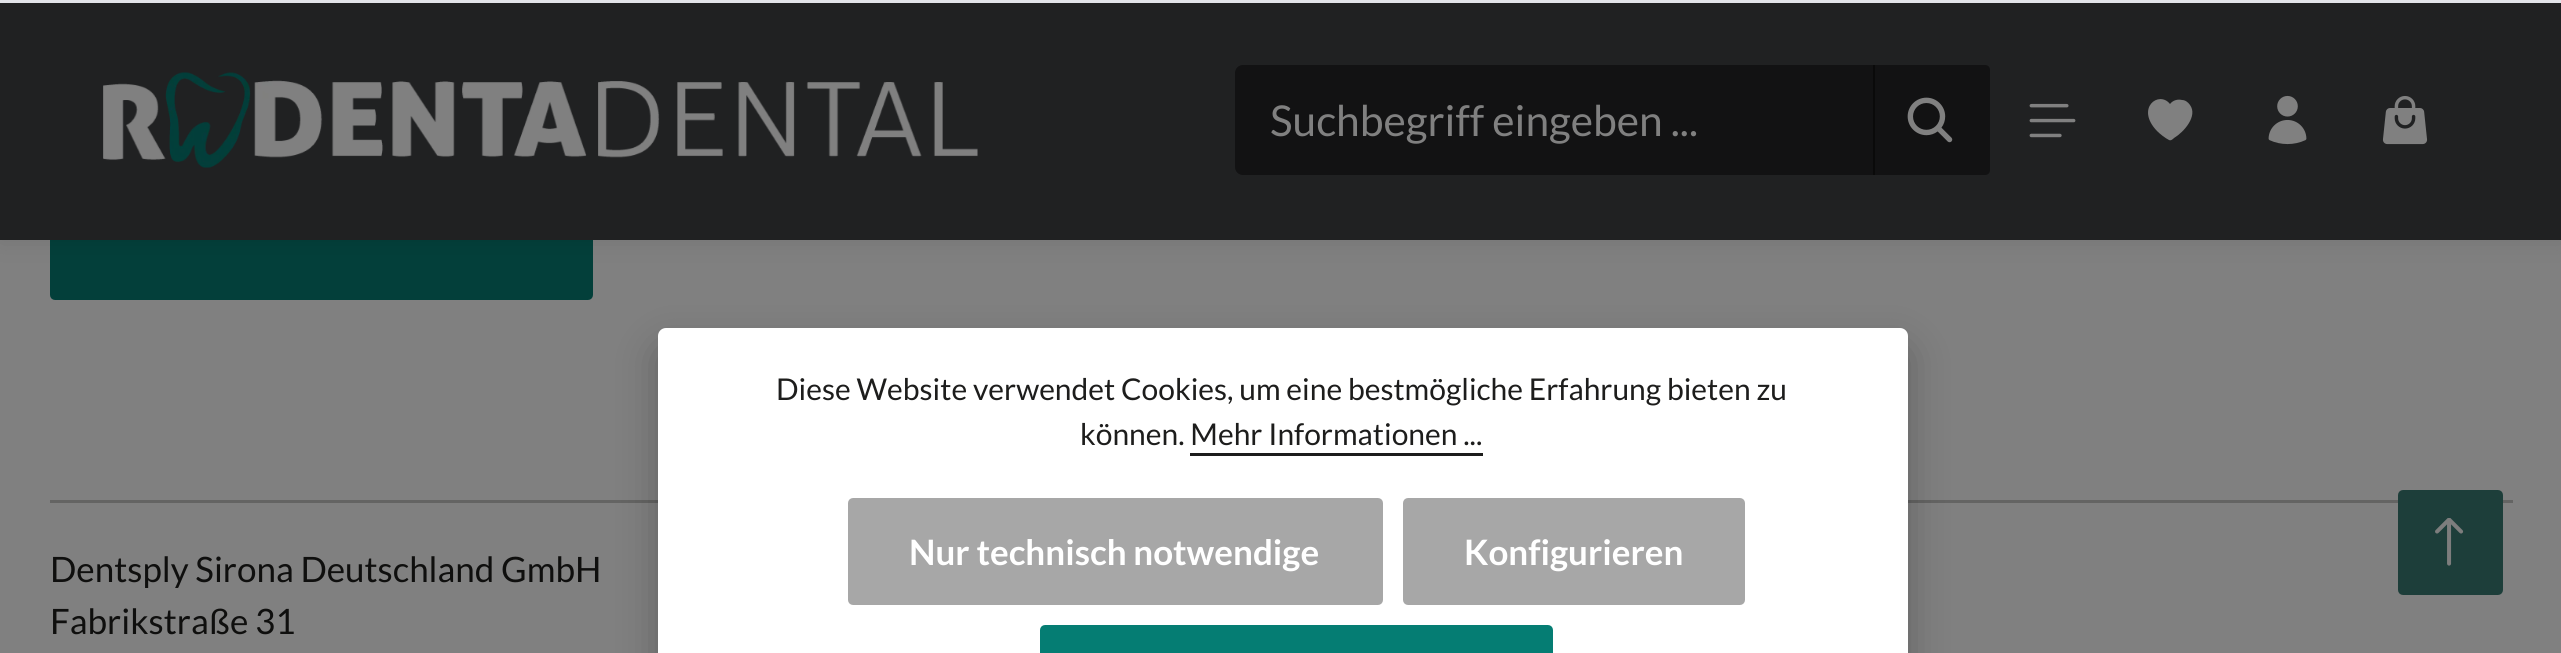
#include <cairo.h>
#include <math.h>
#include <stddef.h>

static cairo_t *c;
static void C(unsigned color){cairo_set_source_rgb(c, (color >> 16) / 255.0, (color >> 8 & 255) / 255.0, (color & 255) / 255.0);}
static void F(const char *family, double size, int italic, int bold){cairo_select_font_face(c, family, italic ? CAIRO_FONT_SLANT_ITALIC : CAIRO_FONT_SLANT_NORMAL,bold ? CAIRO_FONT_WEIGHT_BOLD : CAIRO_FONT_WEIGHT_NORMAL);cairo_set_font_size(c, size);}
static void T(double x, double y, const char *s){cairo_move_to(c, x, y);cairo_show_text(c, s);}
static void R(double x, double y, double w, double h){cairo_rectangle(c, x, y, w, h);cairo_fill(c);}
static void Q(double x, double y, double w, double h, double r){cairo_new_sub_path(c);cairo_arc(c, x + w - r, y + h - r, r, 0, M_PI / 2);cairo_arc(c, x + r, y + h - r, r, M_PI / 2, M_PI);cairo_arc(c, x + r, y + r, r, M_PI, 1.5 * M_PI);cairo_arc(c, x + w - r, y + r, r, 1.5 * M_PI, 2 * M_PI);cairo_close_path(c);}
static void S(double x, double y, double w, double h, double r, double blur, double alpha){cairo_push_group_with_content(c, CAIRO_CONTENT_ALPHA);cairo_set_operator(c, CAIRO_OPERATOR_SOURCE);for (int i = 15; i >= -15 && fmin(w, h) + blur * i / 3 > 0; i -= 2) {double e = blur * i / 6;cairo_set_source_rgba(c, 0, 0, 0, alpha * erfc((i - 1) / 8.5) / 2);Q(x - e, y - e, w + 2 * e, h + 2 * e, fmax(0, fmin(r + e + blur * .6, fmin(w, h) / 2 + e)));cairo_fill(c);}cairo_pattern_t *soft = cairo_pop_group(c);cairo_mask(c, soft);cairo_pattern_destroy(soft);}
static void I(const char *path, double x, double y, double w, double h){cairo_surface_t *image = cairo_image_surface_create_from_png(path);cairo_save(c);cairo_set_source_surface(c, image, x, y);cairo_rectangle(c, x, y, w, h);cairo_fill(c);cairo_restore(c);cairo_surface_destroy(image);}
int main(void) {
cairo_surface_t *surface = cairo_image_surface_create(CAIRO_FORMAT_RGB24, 2561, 653);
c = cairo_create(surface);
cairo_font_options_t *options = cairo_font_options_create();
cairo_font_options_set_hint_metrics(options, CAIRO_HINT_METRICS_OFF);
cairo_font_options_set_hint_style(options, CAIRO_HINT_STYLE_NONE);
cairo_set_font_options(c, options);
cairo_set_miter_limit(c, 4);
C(0x808080);
cairo_paint(c);
C(0x033f3a);
Q(51.5,181.5,540,117,3.5);
cairo_fill_preserve(c);
cairo_set_line_width(c,3);
cairo_stroke(c);
C(0x000000);
S(0,0,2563,240,0,12.5,.1);
C(0x202122);
R(0,3,2561,237);
I("1.png",103,72,875,96);
C(0x121213);
cairo_new_path(c);
cairo_move_to(c,1243,65);
cairo_line_to(c,1875,65);
cairo_line_to(c,1875,175);
cairo_line_to(c,1243,175);
cairo_curve_to(c,1238.5,175,1235,171.5,1235,167);
cairo_line_to(c,1235,73);
cairo_curve_to(c,1235,68.5,1238.5,65,1243,65);
cairo_close_path(c);
cairo_fill(c);
F("Lato",42.5,0,0);
C(0x808080);
T(1270,136,"Suchbegriff eingeben ...");
cairo_set_source_rgba(c,0,0,0,0.45);
cairo_new_path(c);
cairo_move_to(c,1873,65);
cairo_line_to(c,1985,65);
cairo_curve_to(c,1988,65,1990,67,1990,70);
cairo_line_to(c,1990,170);
cairo_curve_to(c,1990,173,1988,175,1985,175);
cairo_line_to(c,1873,175);
cairo_close_path(c);
cairo_fill(c);
I("2.png",1907,97,46,46);
I("3.png",2029,103,47,35);
C(0x808080);
cairo_set_fill_rule(c,CAIRO_FILL_RULE_EVEN_ODD);
cairo_new_path(c);
cairo_move_to(c,2169,140);
cairo_curve_to(c,2165,138,2160,134,2157,131);
cairo_curve_to(c,2135,108,2159,90,2170,104);
cairo_curve_to(c,2173,100,2178,99,2182,100);
cairo_curve_to(c,2185,100,2188,102,2190,105);
cairo_curve_to(c,2198,116,2184,132,2174,138);
cairo_curve_to(c,2173,139,2171,141,2169,140);
cairo_close_path(c);
cairo_fill(c);
I("4.png",2268,95,39,50);
I("5.png",2382,96,46,49);
C(0x646463);
R(50,500,2463,3);
F("Lato",35,0,0);
C(0x0f0f0e);
T(50,582,"Dentsply Sirona Deutschland GmbH");
T(50,634,"Fabrikstraße 31");
C(0xe2e4e9);
R(0,0,2561,3);
C(0x000000);
S(658,348,1250,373,8,20,.25);
C(0xffffff);
Q(658,328,1250,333,8);
cairo_fill(c);
F("Lato",30,0,0);
C(0x1d1d1c);
T(776,400,"Diese Website verwendet Cookies, um eine bestmögliche Erfahrung bieten zu");
T(1080,445,"können. Mehr Informationen ...");
R(1190,453,293,3);
C(0xa7a7a7);
Q(849.5,499.5,532,104,3.5);
cairo_fill_preserve(c);
cairo_stroke(c);
F("Lato",35,0,1);
C(0xffffff);
T(909,565,"Nur technisch notwendige");
C(0xa7a7a7);
Q(1404.5,499.5,339,104,3.5);
cairo_fill_preserve(c);
cairo_stroke(c);
C(0xffffff);
T(1464,565,"Konfigurieren");
C(0x057d73);
Q(1041.5,626.5,510,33,3.5);
cairo_fill_preserve(c);
cairo_stroke(c);
C(0x1d3e3a);
Q(2399.5,491.5,102,102,3.5);
cairo_fill_preserve(c);
cairo_stroke(c);
I("6.png",2435,518,29,48);
cairo_surface_write_to_png(surface, "o.png");
cairo_font_options_destroy(options);
cairo_destroy(c);
cairo_surface_destroy(surface);
return 0;
}
